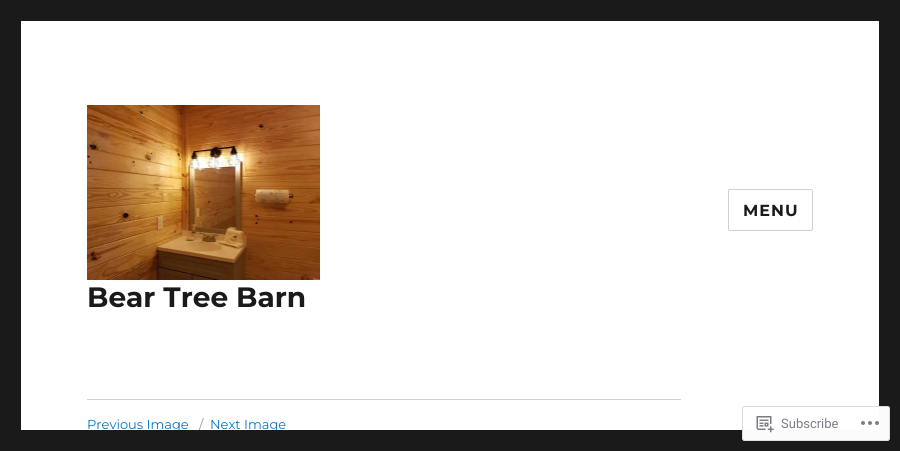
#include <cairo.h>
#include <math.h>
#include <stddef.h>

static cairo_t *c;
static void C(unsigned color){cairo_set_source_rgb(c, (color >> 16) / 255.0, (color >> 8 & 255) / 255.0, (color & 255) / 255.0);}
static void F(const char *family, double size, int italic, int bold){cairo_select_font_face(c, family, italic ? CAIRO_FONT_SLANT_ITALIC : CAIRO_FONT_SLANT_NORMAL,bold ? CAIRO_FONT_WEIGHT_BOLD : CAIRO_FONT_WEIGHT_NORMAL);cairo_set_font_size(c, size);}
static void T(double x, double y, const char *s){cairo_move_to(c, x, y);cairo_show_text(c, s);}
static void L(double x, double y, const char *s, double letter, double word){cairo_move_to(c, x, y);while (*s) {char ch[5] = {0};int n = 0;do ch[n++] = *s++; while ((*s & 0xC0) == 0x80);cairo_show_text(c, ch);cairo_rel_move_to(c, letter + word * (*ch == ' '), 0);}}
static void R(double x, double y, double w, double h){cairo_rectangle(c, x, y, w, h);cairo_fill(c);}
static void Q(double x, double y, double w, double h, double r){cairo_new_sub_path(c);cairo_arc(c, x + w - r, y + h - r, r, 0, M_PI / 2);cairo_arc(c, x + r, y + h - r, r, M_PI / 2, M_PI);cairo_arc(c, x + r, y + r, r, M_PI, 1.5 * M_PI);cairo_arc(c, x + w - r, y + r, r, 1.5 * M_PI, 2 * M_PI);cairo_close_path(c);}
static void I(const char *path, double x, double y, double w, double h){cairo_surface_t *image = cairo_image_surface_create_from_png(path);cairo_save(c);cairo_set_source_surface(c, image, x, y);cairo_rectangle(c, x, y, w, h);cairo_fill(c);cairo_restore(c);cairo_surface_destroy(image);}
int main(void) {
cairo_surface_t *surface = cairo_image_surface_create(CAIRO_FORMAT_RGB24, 900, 451);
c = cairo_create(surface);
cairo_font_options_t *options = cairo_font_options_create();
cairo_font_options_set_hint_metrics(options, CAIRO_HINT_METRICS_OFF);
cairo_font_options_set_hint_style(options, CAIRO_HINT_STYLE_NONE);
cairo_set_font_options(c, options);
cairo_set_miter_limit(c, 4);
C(0x1a1a1a);
cairo_paint(c);
C(0xffffff);
R(21,21,858,409);
Q(728.5,189.5,84,41,1.5);
C(0xd1d1d1);
cairo_set_line_width(c,1);
cairo_stroke(c);
F("Montserrat Thin",16,0,0);
C(0x1a1a1a);
L(743,216,"MENU",1,0);
I("1.png",87,105,233,175);
F("Montserrat Thin",28,0,0);
T(87,307,"Bear Tree Barn");
C(0xd1d1d1);
R(87,399,594,1);
F("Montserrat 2 Thin",13,0,0);
C(0x007acc);
T(87,429,"Previous Image");
C(0x959595);
T(199,429,"/");
C(0x007acc);
T(210,429,"Next Image");
cairo_set_source_rgba(c,1,1,1,0.98);
Q(742,406,148,35,3);
cairo_fill(c);
Q(742.5,406.5,147,34,2.5);
cairo_set_source_rgba(c,0.863,0.863,0.871,0.98);
cairo_stroke(c);
I("2.png",756,416,18,17);
F("Roboto",13,0,0);
C(0x7b7f85);
T(781,428,"Subscribe");
I("3.png",861,421,18,4);
C(0x1a1a1a);
R(173,430,105,2);
cairo_surface_write_to_png(surface, "o.png");
cairo_font_options_destroy(options);
cairo_destroy(c);
cairo_surface_destroy(surface);
return 0;
}
